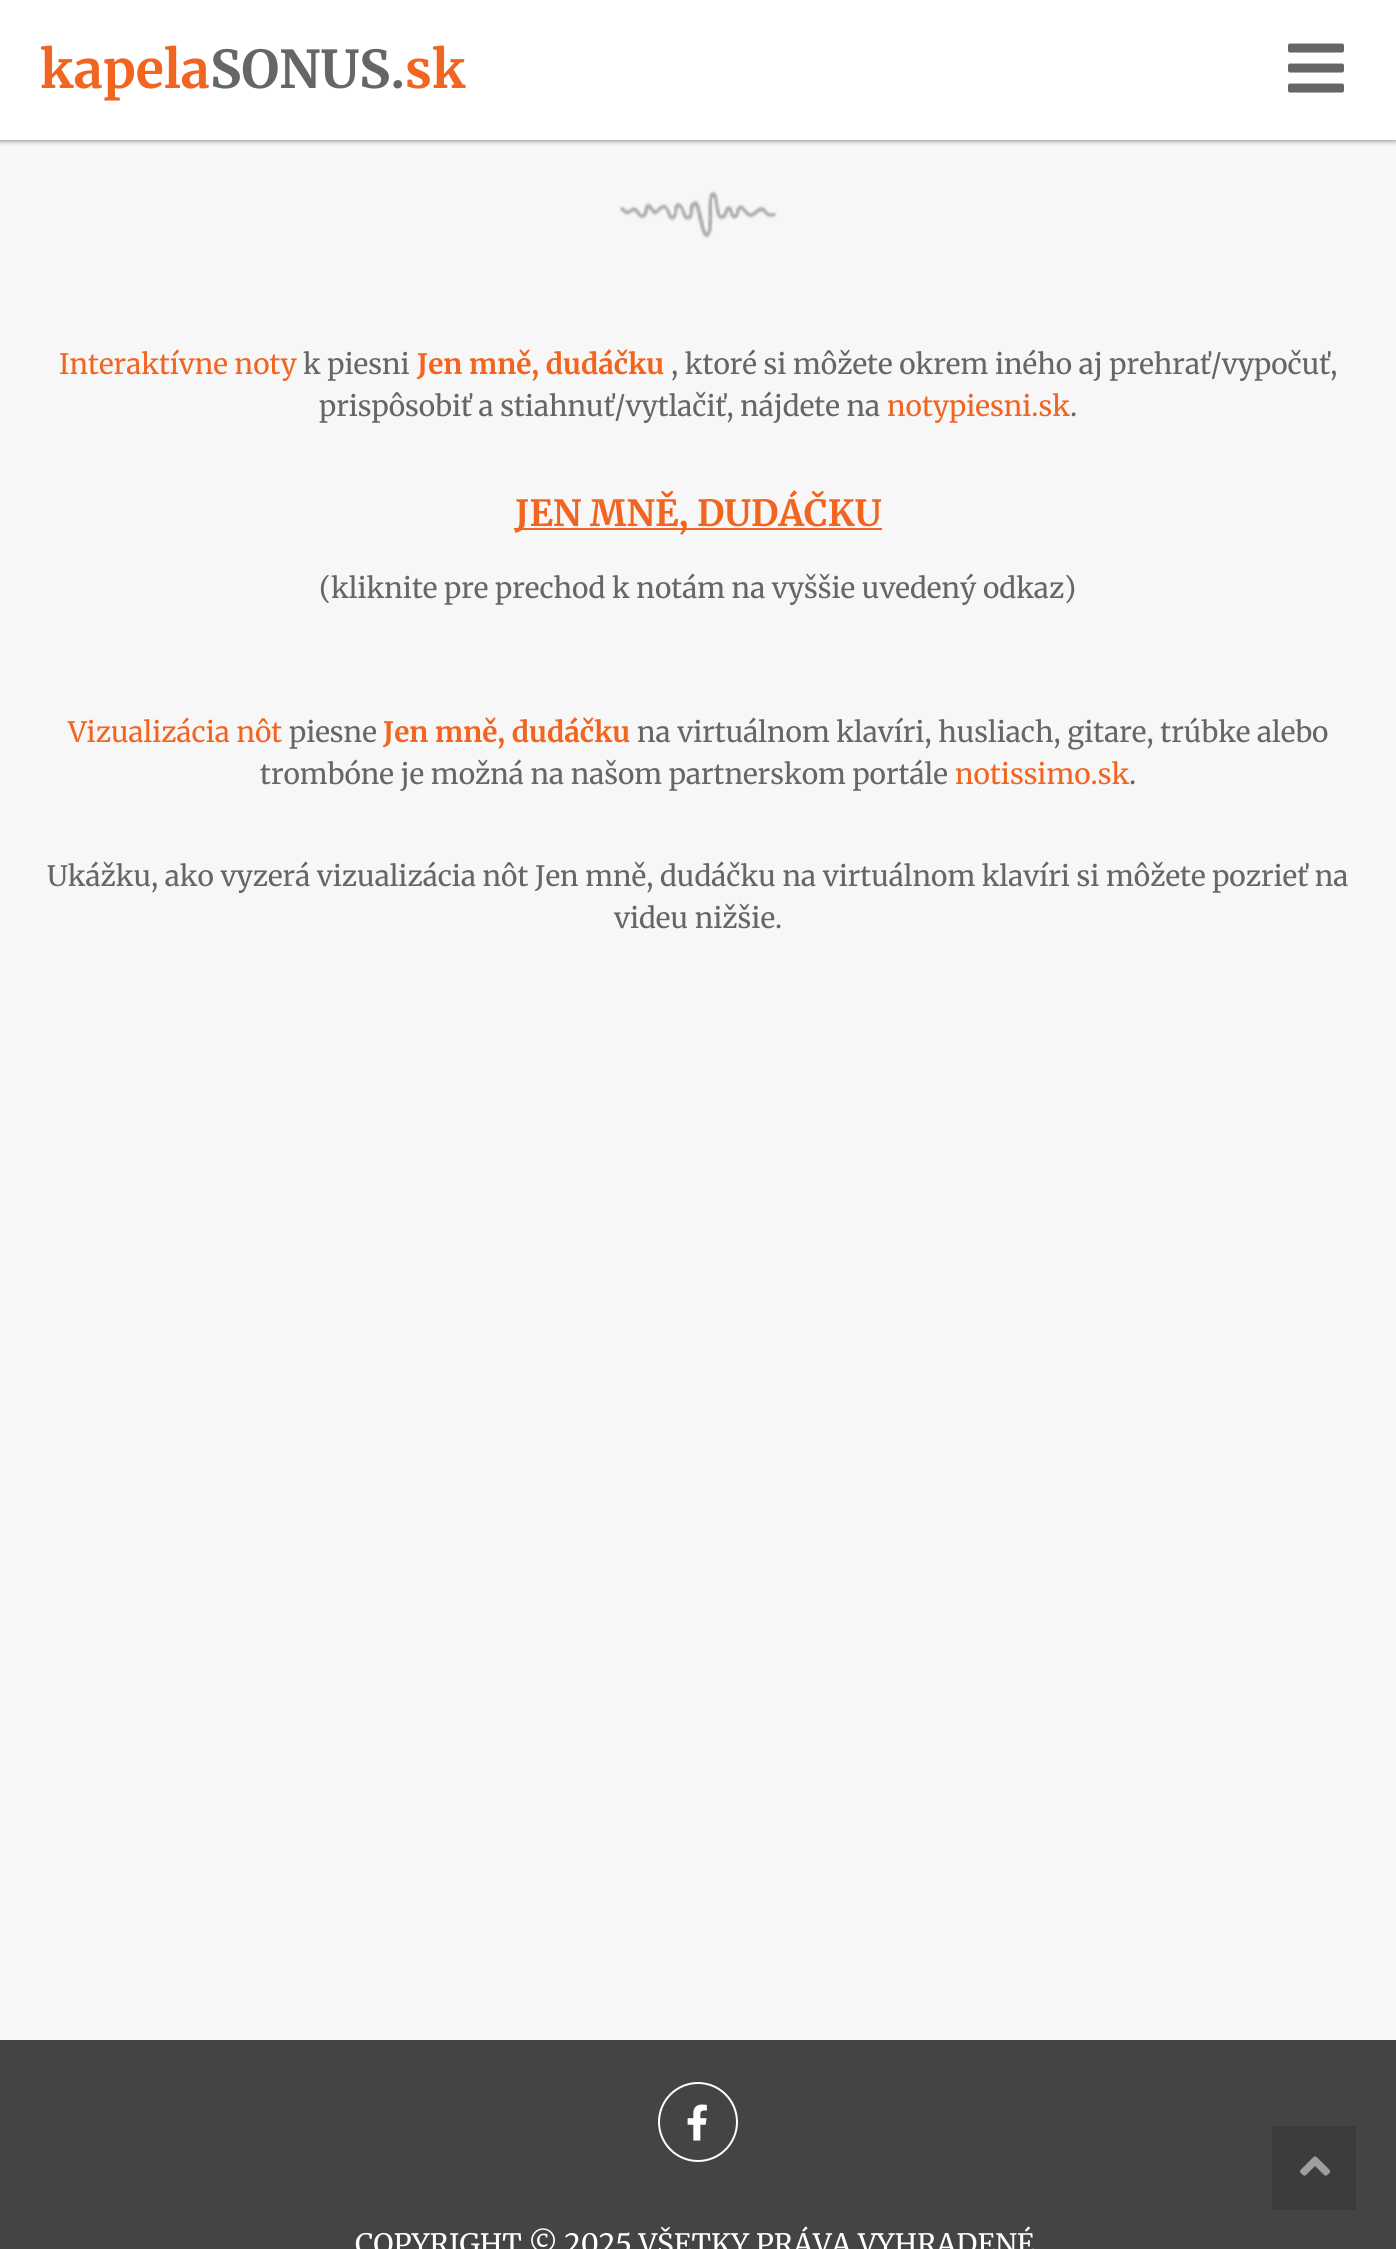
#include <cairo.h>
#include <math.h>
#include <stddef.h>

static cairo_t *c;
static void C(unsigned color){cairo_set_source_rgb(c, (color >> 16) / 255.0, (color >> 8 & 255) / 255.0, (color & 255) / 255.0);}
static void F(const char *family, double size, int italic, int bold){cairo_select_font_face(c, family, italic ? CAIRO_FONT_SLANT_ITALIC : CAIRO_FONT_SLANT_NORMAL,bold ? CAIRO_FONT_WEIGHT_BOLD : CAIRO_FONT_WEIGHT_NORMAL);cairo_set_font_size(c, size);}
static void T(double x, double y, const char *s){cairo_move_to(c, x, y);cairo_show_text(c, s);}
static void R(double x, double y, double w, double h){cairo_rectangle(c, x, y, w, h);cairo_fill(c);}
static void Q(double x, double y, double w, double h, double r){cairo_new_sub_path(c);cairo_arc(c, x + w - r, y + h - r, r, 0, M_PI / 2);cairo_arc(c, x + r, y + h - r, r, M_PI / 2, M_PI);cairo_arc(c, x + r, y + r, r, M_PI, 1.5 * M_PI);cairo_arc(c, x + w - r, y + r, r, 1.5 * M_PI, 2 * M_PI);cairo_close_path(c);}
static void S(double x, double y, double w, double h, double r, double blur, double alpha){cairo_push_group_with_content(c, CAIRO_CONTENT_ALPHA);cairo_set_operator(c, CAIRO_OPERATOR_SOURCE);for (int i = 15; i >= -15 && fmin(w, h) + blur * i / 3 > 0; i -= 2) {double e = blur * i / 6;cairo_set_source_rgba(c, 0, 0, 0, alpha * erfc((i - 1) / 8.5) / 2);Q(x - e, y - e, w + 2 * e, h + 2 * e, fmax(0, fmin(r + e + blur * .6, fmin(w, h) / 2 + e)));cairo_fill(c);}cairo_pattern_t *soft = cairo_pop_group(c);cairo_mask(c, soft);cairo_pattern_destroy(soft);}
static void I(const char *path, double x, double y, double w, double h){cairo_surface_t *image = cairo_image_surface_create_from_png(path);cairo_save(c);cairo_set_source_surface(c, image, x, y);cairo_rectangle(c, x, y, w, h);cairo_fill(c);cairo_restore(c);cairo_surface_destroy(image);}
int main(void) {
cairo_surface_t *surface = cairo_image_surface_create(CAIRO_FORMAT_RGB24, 1396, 2249);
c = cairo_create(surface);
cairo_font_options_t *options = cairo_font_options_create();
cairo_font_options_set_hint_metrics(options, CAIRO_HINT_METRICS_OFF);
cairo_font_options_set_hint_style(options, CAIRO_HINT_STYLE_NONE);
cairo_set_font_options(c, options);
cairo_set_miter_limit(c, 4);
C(0xf7f7f7);
cairo_paint(c);
C(0xffffff);
R(0,0,1396,140);
cairo_save(c);
cairo_rectangle(c,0,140,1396,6);
cairo_clip(c);
C(0x666666);
S(0,0,1396,140,0,3,1);
cairo_restore(c);
F("Merriweather",52,0,1);
C(0xf26521);
T(40,88,"kapela");
C(0x666666);
T(210,88,"SONUS.");
C(0xf26521);
T(405,88,"sk");
I("1.png",1288,43,56,50);
I("2.png",619,191,158,48);
F("Merriweather",28,0,0);
T(59,374,"Interaktívne noty");
C(0x666666);
T(303,374,"k piesni");
F("Merriweather",28,0,1);
C(0xf26521);
T(417,374,"Jen mně, dudáčku");
F("Merriweather",28,0,0);
C(0x666666);
T(671,374,", ktoré si môžete okrem iného aj prehrať/vypočuť,");
T(319,416,"prispôsobiť a stiahnuť/vytlačiť, nájdete na");
C(0xf26521);
T(887,416,"notypiesni.sk");
C(0x666666);
T(1070,416,".");
C(0xf26521);
R(514,528,368,2);
F("Merriweather",36,0,1);
T(515,526,"JEN MNĚ, DUDÁČKU");
F("Merriweather",28,0,0);
C(0x666666);
T(319,598,"(kliknite pre prechod k notám na vyššie uvedený odkaz)");
C(0xf26521);
T(68,742,"Vizualizácia nôt");
C(0x666666);
T(289,742,"piesne");
F("Merriweather",28,0,1);
C(0xf26521);
T(383,742,"Jen mně, dudáčku");
F("Merriweather",28,0,0);
C(0x666666);
T(637,742,"na virtuálnom klavíri, husliach, gitare, trúbke alebo");
T(260,784,"trombóne je možná na našom partnerskom portále");
C(0xf26521);
T(955,784,"notissimo.sk");
C(0x666666);
T(1129,784,".");
T(47,886,"Ukážku, ako vyzerá vizualizácia nôt Jen mně, dudáčku na virtuálnom klavíri si môžete pozrieť na");
T(614,928,"videu nižšie.");
C(0x444444);
R(0,2040,1396,209);
C(0x3c3c3c);
R(1272,2126,84,84);
I("3.png",1300,2156,31,20);
cairo_arc(c,698,2122,39,0,2 * M_PI);
C(0xffffff);
cairo_stroke(c);
I("4.png",687,2104,20,37);
T(355,2254,"COPYRIGHT © 2025 VŠETKY PRÁVA VYHRADENÉ");
cairo_surface_write_to_png(surface, "o.png");
cairo_font_options_destroy(options);
cairo_destroy(c);
cairo_surface_destroy(surface);
return 0;
}
